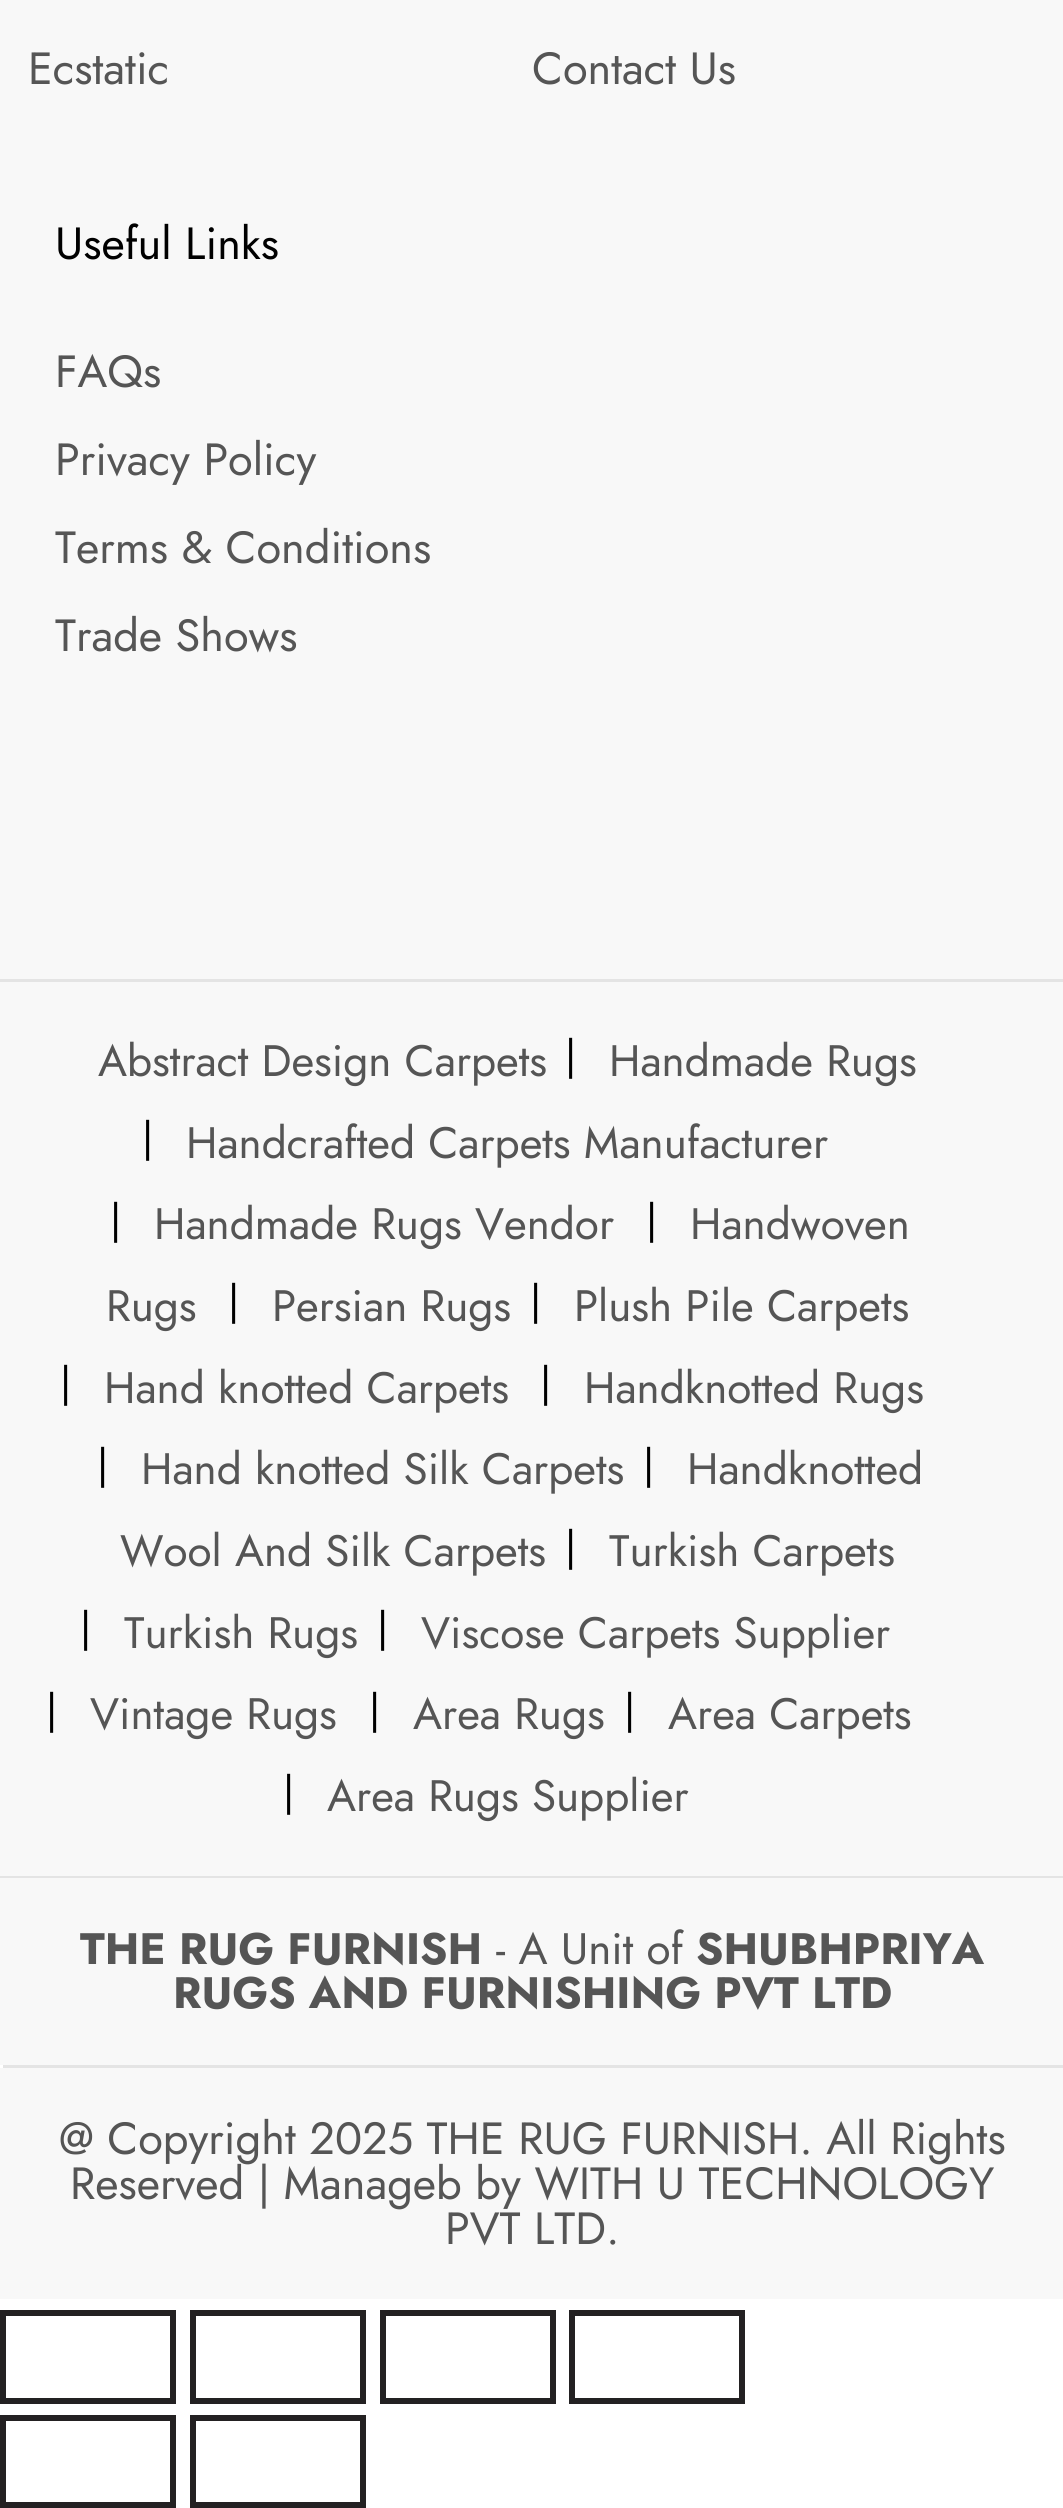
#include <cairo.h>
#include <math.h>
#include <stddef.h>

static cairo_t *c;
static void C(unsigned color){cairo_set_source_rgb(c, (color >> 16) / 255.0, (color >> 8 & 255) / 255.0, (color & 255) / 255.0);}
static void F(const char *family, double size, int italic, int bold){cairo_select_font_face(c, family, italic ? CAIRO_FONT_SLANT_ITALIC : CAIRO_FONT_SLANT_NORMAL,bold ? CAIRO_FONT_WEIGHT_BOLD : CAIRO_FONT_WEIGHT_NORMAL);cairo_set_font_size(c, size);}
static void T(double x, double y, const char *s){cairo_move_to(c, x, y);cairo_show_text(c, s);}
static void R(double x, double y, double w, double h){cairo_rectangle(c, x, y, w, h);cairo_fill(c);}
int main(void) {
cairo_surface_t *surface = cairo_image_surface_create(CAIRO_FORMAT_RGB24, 1063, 2508);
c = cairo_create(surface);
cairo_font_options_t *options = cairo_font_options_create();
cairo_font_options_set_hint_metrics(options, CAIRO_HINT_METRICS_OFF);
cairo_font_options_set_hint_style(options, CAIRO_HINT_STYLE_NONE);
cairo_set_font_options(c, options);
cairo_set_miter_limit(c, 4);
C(0xffffff);
cairo_paint(c);
C(0xf8f8f8);
R(0,0,1063,979);
F("Jost",45.1,0,0);
C(0x555555);
T(28,84,"Ecstatic");
T(532,84,"Contact Us");
C(0x000000);
T(55,259,"Useful Links");
C(0x555555);
T(55,387,"FAQs");
T(55,475,"Privacy Policy");
T(55,563,"Terms & Conditions");
T(55,651,"Trade Shows");
C(0xf8f8f8);
R(0,982,1063,894);
C(0xe4e4e4);
R(0,979,1063,3);
R(0,1876,1063,2);
F("Jost",44,0,0);
C(0x555555);
T(98,1076,"Abstract Design Carpets");
F("Jost",41,0,0);
C(0x000000);
T(565,1070,"|");
F("Jost",44,0,0);
C(0x555555);
T(609,1076,"Handmade Rugs");
F("Jost",41,0,0);
C(0x000000);
T(142,1152,"|");
F("Jost",44,0,0);
C(0x555555);
T(186,1158,"Handcrafted Carpets Manufacturer");
F("Jost",41,0,0);
C(0x000000);
T(646,1234,"|");
F("Jost",44,0,0);
C(0x555555);
T(690,1239,"Handwoven");
T(106,1321,"Rugs");
F("Jost",41,0,0);
C(0x000000);
T(110,1234,"|");
F("Jost",44,0,0);
C(0x555555);
T(154,1239,"Handmade Rugs Vendor");
F("Jost",41,0,0);
C(0x000000);
T(228,1315,"|");
F("Jost",44,0,0);
C(0x555555);
T(272,1321,"Persian Rugs");
F("Jost",41,0,0);
C(0x000000);
T(530,1315,"|");
F("Jost",44,0,0);
C(0x555555);
T(574,1321,"Plush Pile Carpets");
F("Jost",41,0,0);
C(0x000000);
T(60,1397,"|");
F("Jost",44,0,0);
C(0x555555);
T(104,1403,"Hand knotted Carpets");
F("Jost",41,0,0);
C(0x000000);
T(540,1397,"|");
F("Jost",44,0,0);
C(0x555555);
T(584,1403,"Handknotted Rugs");
F("Jost",41,0,0);
C(0x000000);
T(97,1479,"|");
F("Jost",44,0,0);
C(0x555555);
T(141,1484,"Hand knotted Silk Carpets");
F("Jost",41,0,0);
C(0x000000);
T(643,1479,"|");
F("Jost",44,0,0);
C(0x555555);
T(687,1484,"Handknotted");
T(120,1566,"Wool And Silk Carpets");
F("Jost",41,0,0);
C(0x000000);
T(565,1561,"|");
F("Jost",44,0,0);
C(0x555555);
T(609,1566,"Turkish Carpets");
F("Jost",41,0,0);
C(0x000000);
T(80,1642,"|");
F("Jost",44,0,0);
C(0x555555);
T(124,1648,"Turkish Rugs");
F("Jost",41,0,0);
C(0x000000);
T(377,1642,"|");
F("Jost",44,0,0);
C(0x555555);
T(421,1648,"Viscose Carpets Supplier");
F("Jost",41,0,0);
C(0x000000);
T(46,1724,"|");
F("Jost",44,0,0);
C(0x555555);
T(90,1729,"Vintage Rugs");
F("Jost",41,0,0);
C(0x000000);
T(369,1724,"|");
F("Jost",44,0,0);
C(0x555555);
T(413,1729,"Area Rugs");
F("Jost",41,0,0);
C(0x000000);
T(624,1724,"|");
F("Jost",44,0,0);
C(0x555555);
T(668,1729,"Area Carpets");
F("Jost",41,0,0);
C(0x000000);
T(283,1806,"|");
F("Jost",44,0,0);
C(0x555555);
T(327,1811,"Area Rugs Supplier");
C(0xf8f8f8);
R(0,1878,1063,187);
F("Jost",44,0,1);
C(0x555555);
T(80,1964,"THE RUG FURNISH");
F("Jost",44,0,0);
T(496,1964,"- A Unit of");
F("Jost",44,0,1);
T(696,1964,"SHUBHPRIYA");
T(173,2008,"RUGS AND FURNISHING PVT LTD");
C(0xf8f8f8);
cairo_new_path(c);
cairo_move_to(c,3,2068);
cairo_line_to(c,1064,2068);
cairo_line_to(c,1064,2299);
cairo_line_to(c,0,2299);
cairo_line_to(c,0,2068);
cairo_close_path(c);
cairo_fill(c);
C(0xe4e4e4);
R(3,2065,1060,3);
F("Jost",45.1,0,0);
C(0x555555);
T(59,2154,"@ Copyright 2025 THE RUG FURNISH. All Rights");
T(70,2199,"Reserved | Manageb by WITH U TECHNOLOGY");
T(445,2244,"PVT LTD.");
cairo_rectangle(c,3,2313,170,88);
C(0x232122);
cairo_set_line_width(c,6);
cairo_stroke(c);
cairo_rectangle(c,193,2313,170,88);
cairo_stroke(c);
cairo_rectangle(c,383,2313,170,88);
cairo_stroke(c);
cairo_rectangle(c,572,2313,170,88);
cairo_stroke(c);
cairo_rectangle(c,3,2418,170,87);
cairo_stroke(c);
cairo_rectangle(c,193,2418,170,87);
cairo_stroke(c);
cairo_surface_write_to_png(surface, "o.png");
cairo_font_options_destroy(options);
cairo_destroy(c);
cairo_surface_destroy(surface);
return 0;
}
